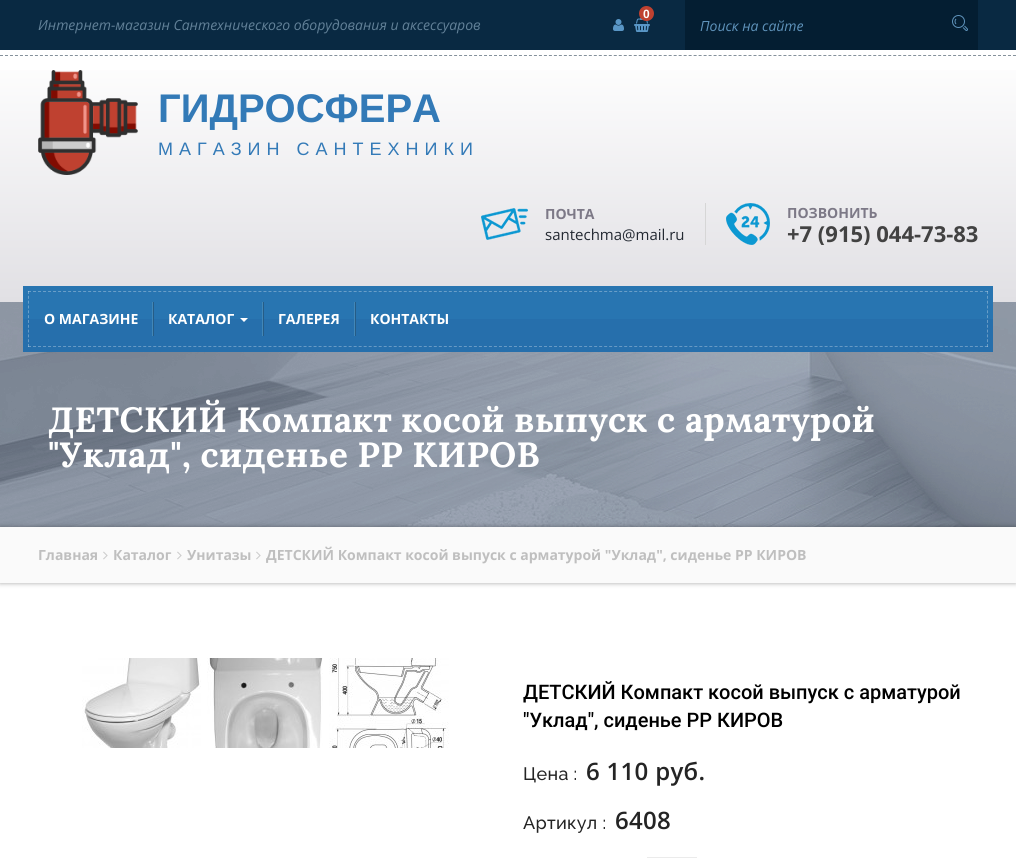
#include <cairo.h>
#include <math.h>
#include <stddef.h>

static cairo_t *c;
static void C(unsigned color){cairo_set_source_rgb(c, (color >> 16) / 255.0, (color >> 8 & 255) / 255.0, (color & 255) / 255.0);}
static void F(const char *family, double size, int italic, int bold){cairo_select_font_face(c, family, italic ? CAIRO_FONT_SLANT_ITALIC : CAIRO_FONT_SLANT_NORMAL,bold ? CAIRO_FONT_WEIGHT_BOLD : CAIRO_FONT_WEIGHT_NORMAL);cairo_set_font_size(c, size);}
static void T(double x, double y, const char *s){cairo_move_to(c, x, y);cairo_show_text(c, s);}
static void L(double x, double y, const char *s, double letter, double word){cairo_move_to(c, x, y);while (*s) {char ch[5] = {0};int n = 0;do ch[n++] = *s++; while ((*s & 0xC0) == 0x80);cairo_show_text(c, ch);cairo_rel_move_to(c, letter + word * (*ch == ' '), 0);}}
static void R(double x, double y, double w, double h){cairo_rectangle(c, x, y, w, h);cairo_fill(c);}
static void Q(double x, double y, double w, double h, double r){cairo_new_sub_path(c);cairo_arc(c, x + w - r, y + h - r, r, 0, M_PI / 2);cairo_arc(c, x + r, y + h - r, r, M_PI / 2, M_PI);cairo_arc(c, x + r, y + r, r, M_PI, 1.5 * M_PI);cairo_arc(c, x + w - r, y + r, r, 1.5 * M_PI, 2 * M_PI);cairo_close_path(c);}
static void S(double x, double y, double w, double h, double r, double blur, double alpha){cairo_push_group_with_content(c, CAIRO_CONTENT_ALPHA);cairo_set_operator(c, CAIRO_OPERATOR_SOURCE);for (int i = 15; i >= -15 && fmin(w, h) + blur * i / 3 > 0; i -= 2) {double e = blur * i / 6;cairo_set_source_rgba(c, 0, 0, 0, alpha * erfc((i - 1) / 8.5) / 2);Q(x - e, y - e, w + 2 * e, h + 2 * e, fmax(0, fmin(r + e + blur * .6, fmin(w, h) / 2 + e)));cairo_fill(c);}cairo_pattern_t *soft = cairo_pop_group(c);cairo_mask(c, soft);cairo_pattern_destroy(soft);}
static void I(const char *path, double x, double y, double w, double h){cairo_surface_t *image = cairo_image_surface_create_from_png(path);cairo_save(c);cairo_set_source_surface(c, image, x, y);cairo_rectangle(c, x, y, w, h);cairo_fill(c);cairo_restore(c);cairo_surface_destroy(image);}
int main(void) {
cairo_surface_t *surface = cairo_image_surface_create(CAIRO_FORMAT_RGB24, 1016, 858);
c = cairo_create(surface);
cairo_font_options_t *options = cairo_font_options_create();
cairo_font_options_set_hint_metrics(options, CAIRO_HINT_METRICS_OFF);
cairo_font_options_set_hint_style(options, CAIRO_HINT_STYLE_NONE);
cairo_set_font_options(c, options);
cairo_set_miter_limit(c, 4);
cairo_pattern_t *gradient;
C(0xffffff);
cairo_paint(c);
C(0x092942);
R(0,0,1016,50);
I("1.png",634,18,16,14);
C(0xbf4130);
cairo_arc(c,646.5,13.5,7.5,0,2 * M_PI);
cairo_fill(c);
F("Liberation Sans",12,0,1);
C(0xffffff);
T(643,18,"0");
I("2.png",613,19,11,12);
F("Open Sans",14,1,0);
C(0x628198);
T(38,30,"Интернет-магазин Сантехнического оборудования и аксессуаров");
C(0x041e32);
R(685,0,293,50);
C(0x5f93bb);
T(700,31,"Поиск на сайте");
I("3.png",952,15,16,16);
gradient = cairo_pattern_create_linear(508,302,508,50);
cairo_pattern_add_color_stop_rgba(gradient,0,0.882,0.878,0.894,1);
cairo_pattern_add_color_stop_rgba(gradient,1,1,1,1,1);
cairo_set_source(c,gradient);
cairo_pattern_destroy(gradient);
R(0,70,1016,232);
cairo_new_path(c);
cairo_move_to(c,0,55.5);
cairo_line_to(c,1016,55.5);
C(0x85919b);
cairo_set_line_width(c,1);
cairo_set_dash(c,(double[]){3,1.99},2,0);
cairo_stroke(c);
I("4.png",38,70,100,105);
F("Liberation Sans",40,0,1);
C(0x337ab7);
T(158,122,"ГИДРОСФЕРА");
F("Liberation Sans",18,0,0);
L(158,155,"МАГАЗИН САНТЕХНИКИ",6,0);
C(0xd6d6d6);
R(705,203,1,42);
I("5.png",481,208,47,32);
F("Open Sans",14,0,1);
C(0x7d7987);
T(545,219,"ПОЧТА");
F("Open Sans",15,0,0);
C(0x232932);
T(545,240,"santechma@mail.ru");
I("6.png",726,203,44,42);
F("Open Sans",14,0,1);
C(0x7d7987);
T(787,218,"ПОЗВОНИТЬ");
cairo_save(c);
cairo_rectangle(c,787,203,191,42);
cairo_clip(c);
F("Open Sans",22,0,1);
C(0x424242);
T(787,242,"+7 (915) 044-73-83");
cairo_restore(c);
C(0x717e95);
R(0,302,1016,225);
I("7.png",0,302,1016,225);
cairo_set_source_rgba(c,0.443,0.494,0.584,0.2);
R(0,302,1016,225);
I("8.png",0,302,1016,225);
C(0x2875b1);
R(23,286,970,33);
C(0x266fac);
R(23,319,970,33);
cairo_new_path(c);
cairo_move_to(c,28,291.5);
cairo_line_to(c,988,291.5);
C(0x699ec8);
cairo_set_dash(c,(double[]){3,2.01},2,0);
cairo_stroke(c);
cairo_new_path(c);
cairo_move_to(c,987.5,291);
cairo_line_to(c,987.5,347);
cairo_set_source_rgba(c,1,1,1,0.3);
cairo_set_dash(c,(double[]){3,1.82},2,0);
cairo_stroke(c);
cairo_new_path(c);
cairo_move_to(c,28,346.5);
cairo_line_to(c,988,346.5);
cairo_set_dash(c,(double[]){3,2.01},2,0);
cairo_stroke(c);
cairo_new_path(c);
cairo_move_to(c,28.5,291);
cairo_line_to(c,28.5,347);
cairo_set_dash(c,(double[]){3,1.82},2,0);
cairo_stroke(c);
C(0xffffff);
T(44,324,"О МАГАЗИНЕ");
C(0x4287b8);
R(152,302,1,34);
C(0x265c86);
R(153,302,1,34);
C(0xffffff);
T(168,324,"КАТАЛОГ");
cairo_new_path(c);
cairo_move_to(c,240,318);
cairo_line_to(c,248,318);
cairo_line_to(c,244,322);
cairo_close_path(c);
cairo_fill(c);
C(0x4287b8);
R(262,302,1,34);
C(0x265c86);
R(263,302,1,34);
C(0xffffff);
T(278,324,"ГАЛЕРЕЯ");
C(0x4287b8);
R(354,302,1,34);
C(0x265c86);
R(355,302,1,34);
C(0xffffff);
T(370,324,"КОНТАКТЫ");
F("Lora",35,0,1);
L(48,432,"ДЕТСКИЙ Компакт косой выпуск с арматурой",.3,0);
L(48,467,"\"Уклад\", сиденье PP КИРОВ",.3,0);
C(0x000000);
S(0,527,1016,56,0,2.5,.35);
C(0xfafafa);
R(0,527,1016,56);
F("Open Sans",14,0,1);
C(0xbfbfbf);
T(38,560,"Главная");
I("9.png",103,551,5,9);
T(113,560,"Каталог");
I("9.png",177,551,5,9);
T(187,560,"Унитазы");
I("9.png",256,551,5,9);
T(266,560,"ДЕТСКИЙ Компакт косой выпуск с арматурой \"Уклад\", сиденье PP КИРОВ");
I("10.png",82,658,119,90);
I("11.png",207,658,116,90);
I("12.png",329,658,120,90);
F("Roboto Medium",20,0,0);
C(0x000000);
T(523,699,"ДЕТСКИЙ Компакт косой выпуск с арматурой");
T(523,727,"\"Уклад\", сиденье PP КИРОВ");
F("Raleway Medium",18,0,0);
C(0x242424);
L(523,780,"Цена :",.3,0);
F("Open Sans SemiBold",24,0,0);
L(586,780,"6 110 руб.",.3,0);
F("Raleway Medium",18,0,0);
L(523,829,"Артикул :",.3,0);
F("Open Sans SemiBold",24,0,0);
L(615,829,"6408",.3,0);
cairo_rectangle(c,647.5,857.5,49,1);
C(0xebebeb);
cairo_set_dash(c,NULL,0,0);
cairo_stroke(c);
cairo_surface_write_to_png(surface, "o.png");
cairo_font_options_destroy(options);
cairo_destroy(c);
cairo_surface_destroy(surface);
return 0;
}
